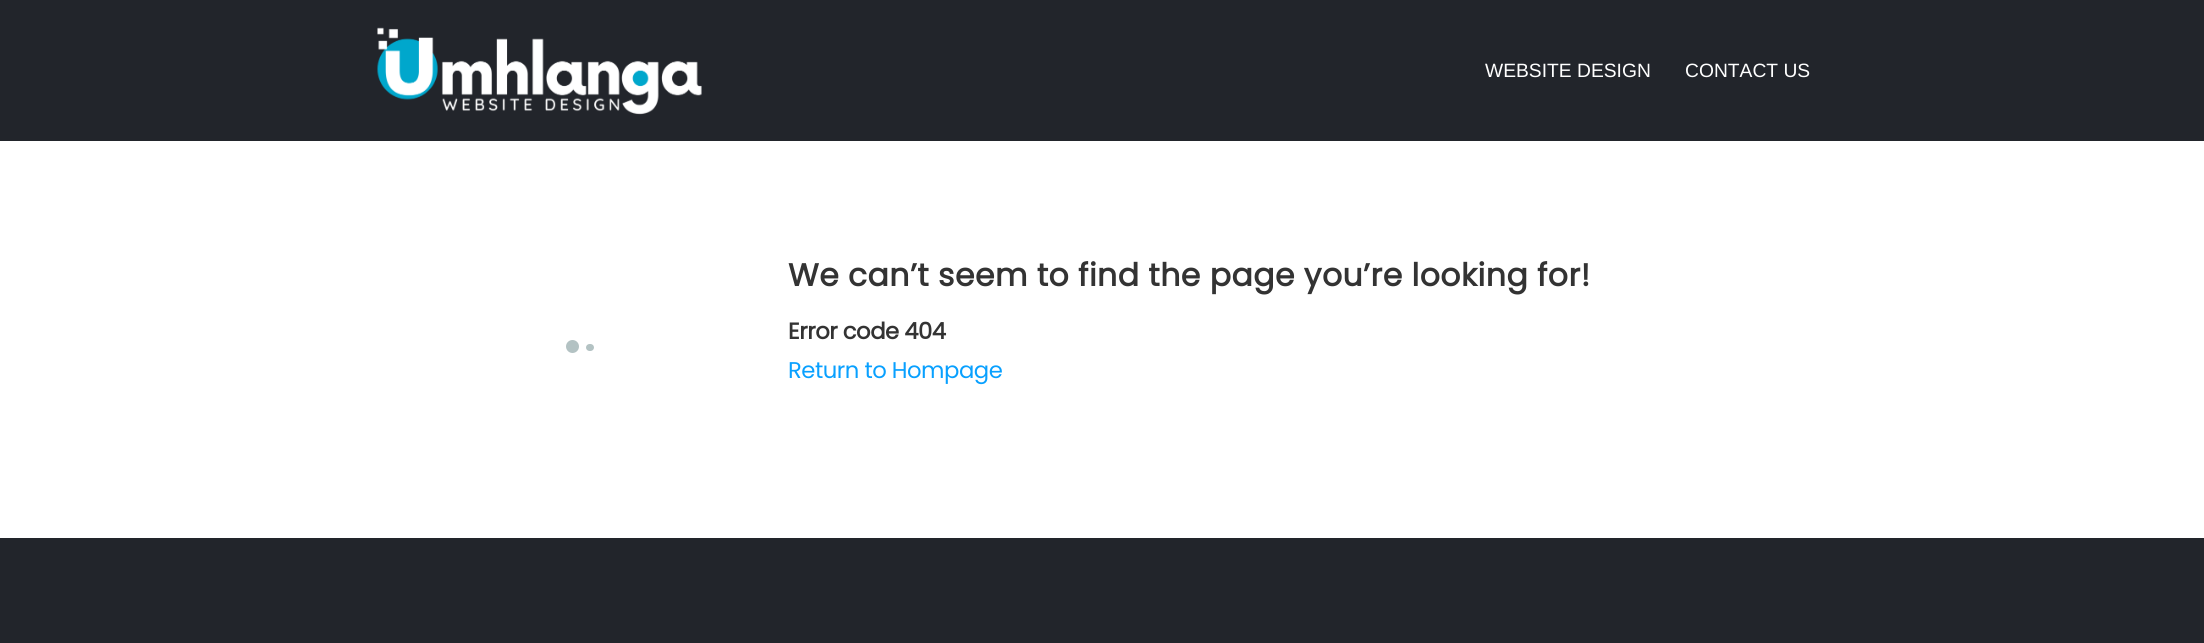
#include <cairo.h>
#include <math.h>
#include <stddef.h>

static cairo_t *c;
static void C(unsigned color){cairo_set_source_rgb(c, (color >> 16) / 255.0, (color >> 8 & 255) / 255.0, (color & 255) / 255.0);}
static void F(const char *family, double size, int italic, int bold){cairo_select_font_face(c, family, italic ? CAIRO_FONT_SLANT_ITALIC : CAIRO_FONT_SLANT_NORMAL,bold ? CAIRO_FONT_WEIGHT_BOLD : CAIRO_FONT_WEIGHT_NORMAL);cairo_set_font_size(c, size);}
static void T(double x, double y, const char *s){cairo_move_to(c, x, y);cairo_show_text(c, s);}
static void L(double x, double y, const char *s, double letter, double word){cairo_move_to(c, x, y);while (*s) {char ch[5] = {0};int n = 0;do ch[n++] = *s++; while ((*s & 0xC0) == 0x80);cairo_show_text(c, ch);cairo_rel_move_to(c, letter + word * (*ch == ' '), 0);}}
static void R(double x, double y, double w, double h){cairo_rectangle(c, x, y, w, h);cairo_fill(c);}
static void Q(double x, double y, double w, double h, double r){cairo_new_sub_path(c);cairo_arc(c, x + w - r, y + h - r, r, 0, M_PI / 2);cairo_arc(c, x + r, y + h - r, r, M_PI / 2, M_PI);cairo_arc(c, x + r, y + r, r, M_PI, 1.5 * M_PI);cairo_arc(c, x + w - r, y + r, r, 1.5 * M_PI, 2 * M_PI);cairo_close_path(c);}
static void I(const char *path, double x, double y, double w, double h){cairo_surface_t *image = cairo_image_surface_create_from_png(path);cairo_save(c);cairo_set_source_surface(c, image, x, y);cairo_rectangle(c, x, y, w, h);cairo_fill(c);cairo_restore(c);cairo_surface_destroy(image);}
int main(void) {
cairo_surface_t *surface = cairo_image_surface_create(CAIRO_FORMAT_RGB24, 2204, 643);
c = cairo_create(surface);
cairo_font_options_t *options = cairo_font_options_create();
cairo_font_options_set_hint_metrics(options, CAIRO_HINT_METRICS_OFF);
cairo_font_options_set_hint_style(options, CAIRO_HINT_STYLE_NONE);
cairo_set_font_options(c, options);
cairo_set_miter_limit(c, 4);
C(0xffffff);
cairo_paint(c);
C(0x22252b);
R(0,0,2204,141);
I("1.png",377,27,325,88);
F("Liberation Sans",19.25,0,0);
C(0xffffff);
T(1485,77,"WEBSITE DESIGN");
T(1685,77,"CONTACT US");
C(0xb3c2c3);
cairo_new_path(c);
cairo_arc(c,572.5,346.5,6.5,0,2 * M_PI);
cairo_fill(c);
Q(586,344,8,7,3.5);
cairo_fill(c);
F("Poppins",31.5,0,1);
C(0x333333);
L(788,286,"We can’t seem to find the page you’re looking for!",.45,0);
F("Poppins",22.75,0,1);
L(788,339,"Error code 404",-.5,0);
F("Poppins",22.75,0,0);
C(0x08a0ff);
L(788,378,"Return to Hompage",-.5,0);
C(0x22252b);
R(0,538,2204,105);
cairo_surface_write_to_png(surface, "o.png");
cairo_font_options_destroy(options);
cairo_destroy(c);
cairo_surface_destroy(surface);
return 0;
}
